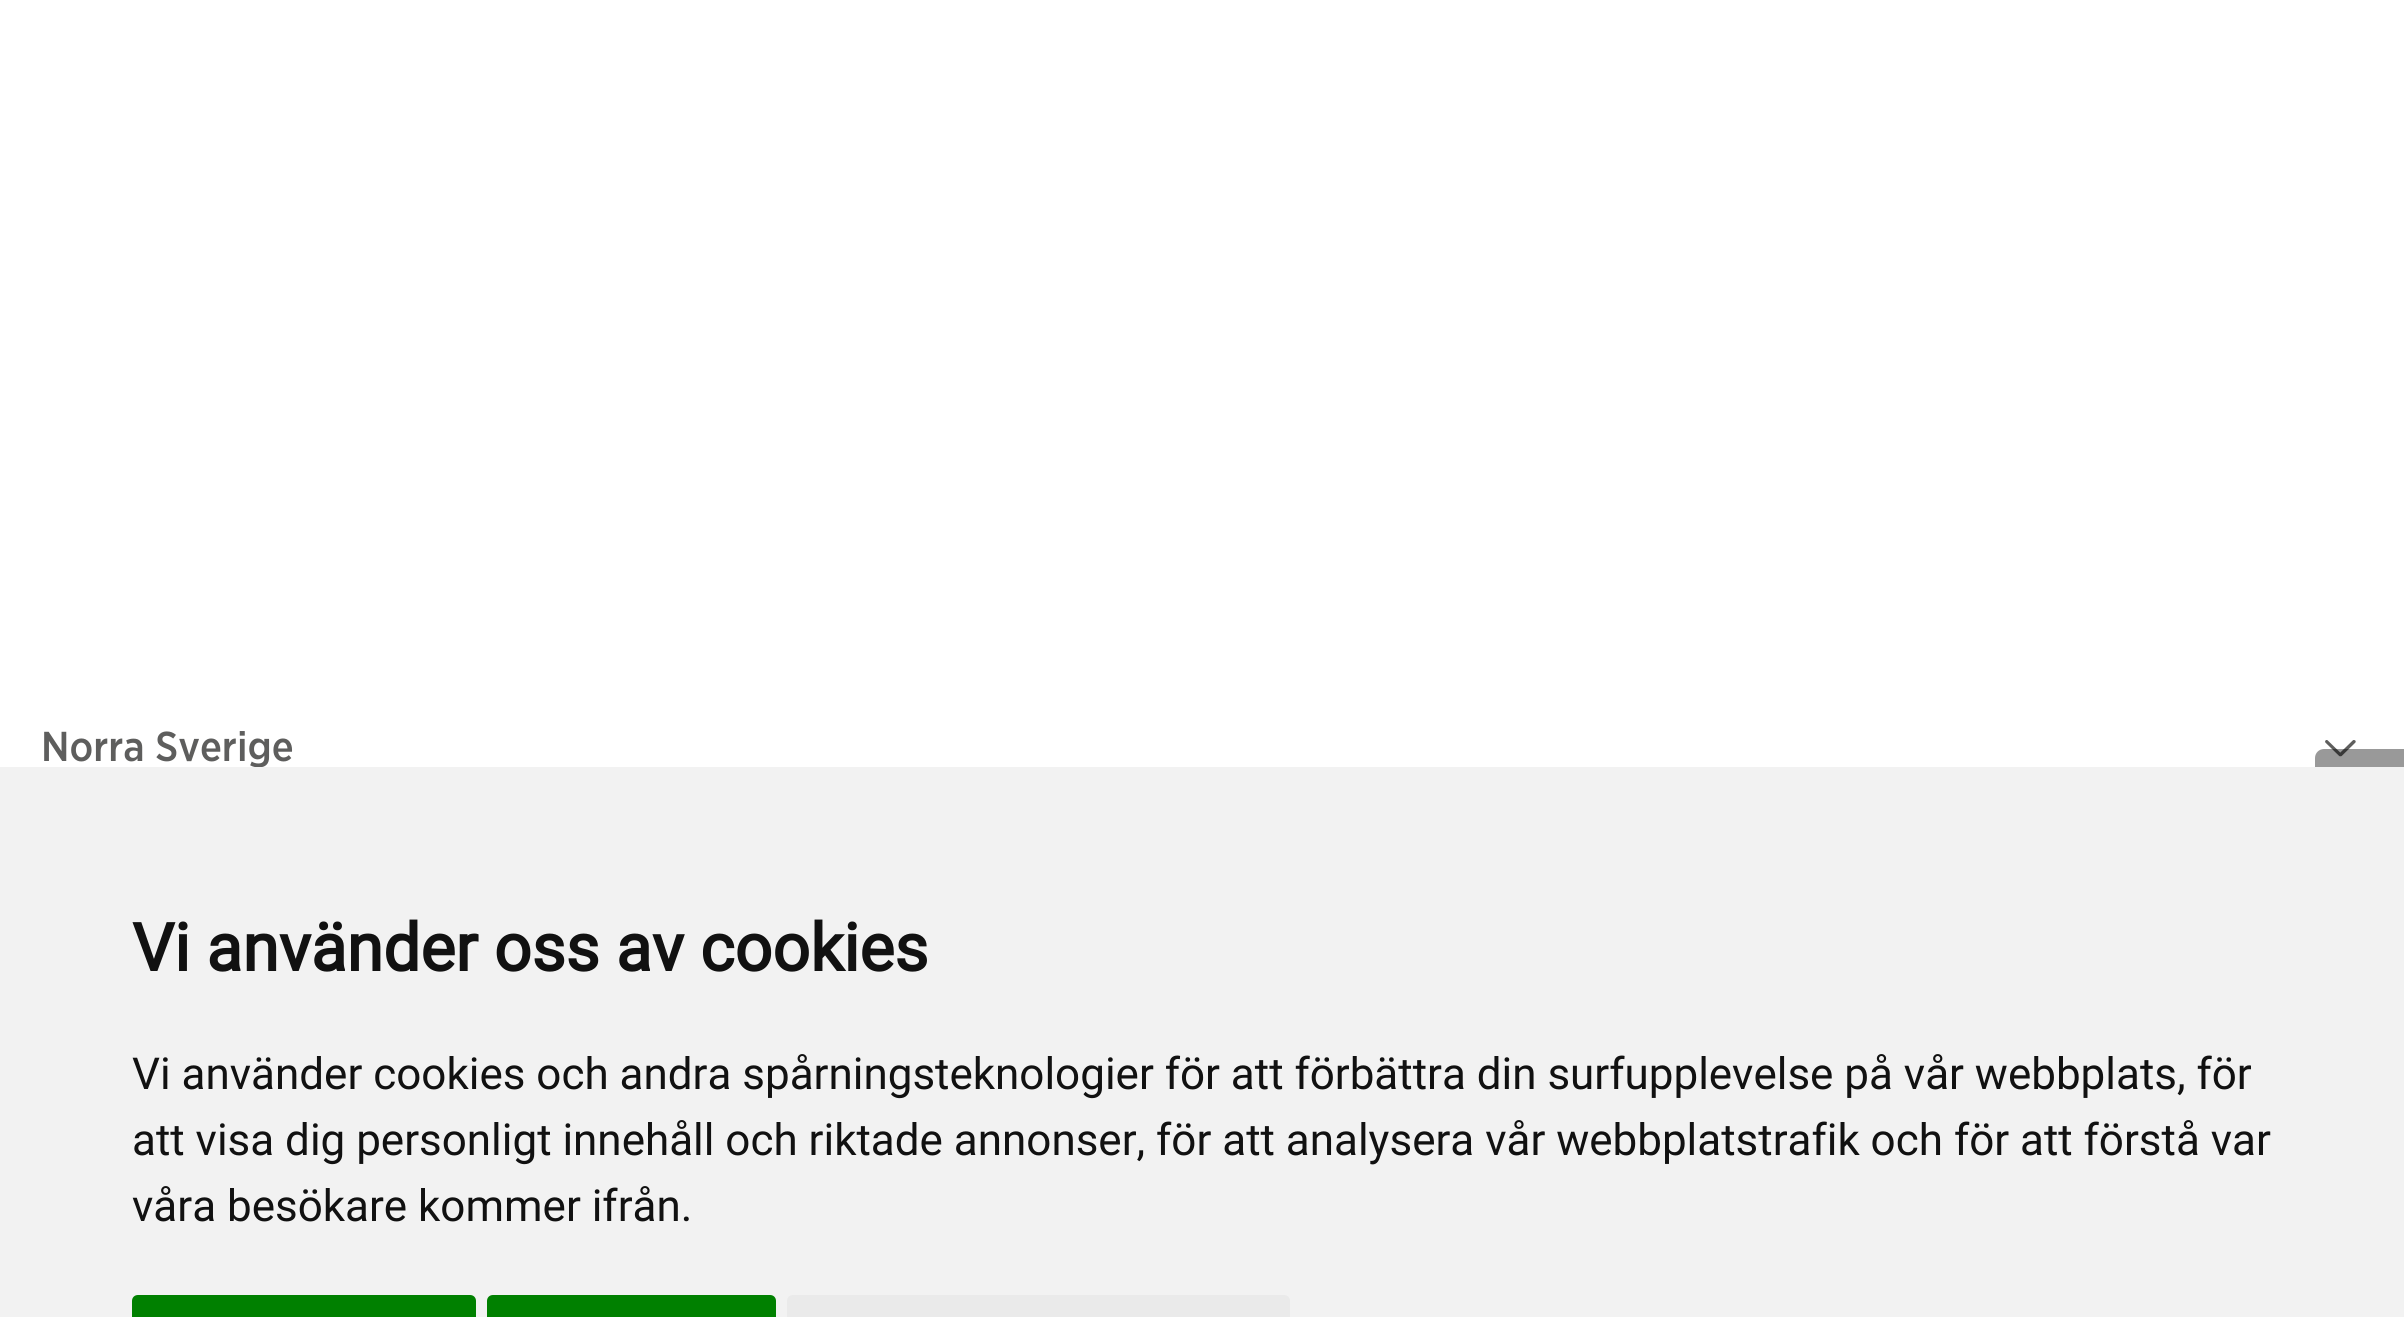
#include <cairo.h>
#include <math.h>
#include <stddef.h>

static cairo_t *c;
static void C(unsigned color){cairo_set_source_rgb(c, (color >> 16) / 255.0, (color >> 8 & 255) / 255.0, (color & 255) / 255.0);}
static void F(const char *family, double size, int italic, int bold){cairo_select_font_face(c, family, italic ? CAIRO_FONT_SLANT_ITALIC : CAIRO_FONT_SLANT_NORMAL,bold ? CAIRO_FONT_WEIGHT_BOLD : CAIRO_FONT_WEIGHT_NORMAL);cairo_set_font_size(c, size);}
static void T(double x, double y, const char *s){cairo_move_to(c, x, y);cairo_show_text(c, s);}
static void R(double x, double y, double w, double h){cairo_rectangle(c, x, y, w, h);cairo_fill(c);}
static void I(const char *path, double x, double y, double w, double h){cairo_surface_t *image = cairo_image_surface_create_from_png(path);cairo_save(c);cairo_set_source_surface(c, image, x, y);cairo_rectangle(c, x, y, w, h);cairo_fill(c);cairo_restore(c);cairo_surface_destroy(image);}
int main(void) {
cairo_surface_t *surface = cairo_image_surface_create(CAIRO_FORMAT_RGB24, 2404, 1317);
c = cairo_create(surface);
cairo_font_options_t *options = cairo_font_options_create();
cairo_font_options_set_hint_metrics(options, CAIRO_HINT_METRICS_OFF);
cairo_font_options_set_hint_style(options, CAIRO_HINT_STYLE_NONE);
cairo_set_font_options(c, options);
cairo_set_miter_limit(c, 4);
C(0xffffff);
cairo_paint(c);
F("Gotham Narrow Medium",41.75,0,0);
C(0x5e5e5d);
T(41,761,"Norra Sverige");
I("1.png",2325,740,31,17);
cairo_set_source_rgba(c,0,0,0,0.4);
cairo_new_path(c);
cairo_move_to(c,2315,990);
cairo_line_to(c,2315,758);
cairo_curve_to(c,2315,753,2319,749,2324,749);
cairo_line_to(c,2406,749);
cairo_line_to(c,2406,998);
cairo_line_to(c,2324,998);
cairo_curve_to(c,2319,998,2315,994,2315,990);
cairo_close_path(c);
cairo_fill(c);
C(0xf2f2f2);
R(0,767,2404,550);
F("Roboto",66,0,1);
C(0x111111);
T(132,971,"Vi använder oss av cookies");
F("Roboto",44,0,0);
T(132,1089,"Vi använder cookies och andra spårningsteknologier för att förbättra din surfupplevelse på vår webbplats, för");
T(132,1155,"att visa dig personligt innehåll och riktade annonser, för att analysera vår webbplatstrafik och för att förstå var");
T(132,1221,"våra besökare kommer ifrån.");
C(0x008000);
cairo_new_path(c);
cairo_move_to(c,138,1295);
cairo_line_to(c,470,1295);
cairo_curve_to(c,473.5,1295,476,1297.5,476,1301);
cairo_line_to(c,476,1317);
cairo_line_to(c,132,1317);
cairo_line_to(c,132,1301);
cairo_curve_to(c,132,1297.5,134.5,1295,138,1295);
cairo_close_path(c);
cairo_fill(c);
cairo_new_path(c);
cairo_move_to(c,493,1295);
cairo_line_to(c,770,1295);
cairo_curve_to(c,773.5,1295,776,1297.5,776,1301);
cairo_line_to(c,776,1317);
cairo_line_to(c,487,1317);
cairo_line_to(c,487,1301);
cairo_curve_to(c,487,1297.5,489.5,1295,493,1295);
cairo_close_path(c);
cairo_fill(c);
C(0xeaeaea);
cairo_new_path(c);
cairo_move_to(c,793,1295);
cairo_line_to(c,1284,1295);
cairo_curve_to(c,1287.5,1295,1290,1297.5,1290,1301);
cairo_line_to(c,1290,1317);
cairo_line_to(c,787,1317);
cairo_line_to(c,787,1301);
cairo_curve_to(c,787,1297.5,789.5,1295,793,1295);
cairo_close_path(c);
cairo_fill(c);
cairo_surface_write_to_png(surface, "o.png");
cairo_font_options_destroy(options);
cairo_destroy(c);
cairo_surface_destroy(surface);
return 0;
}
